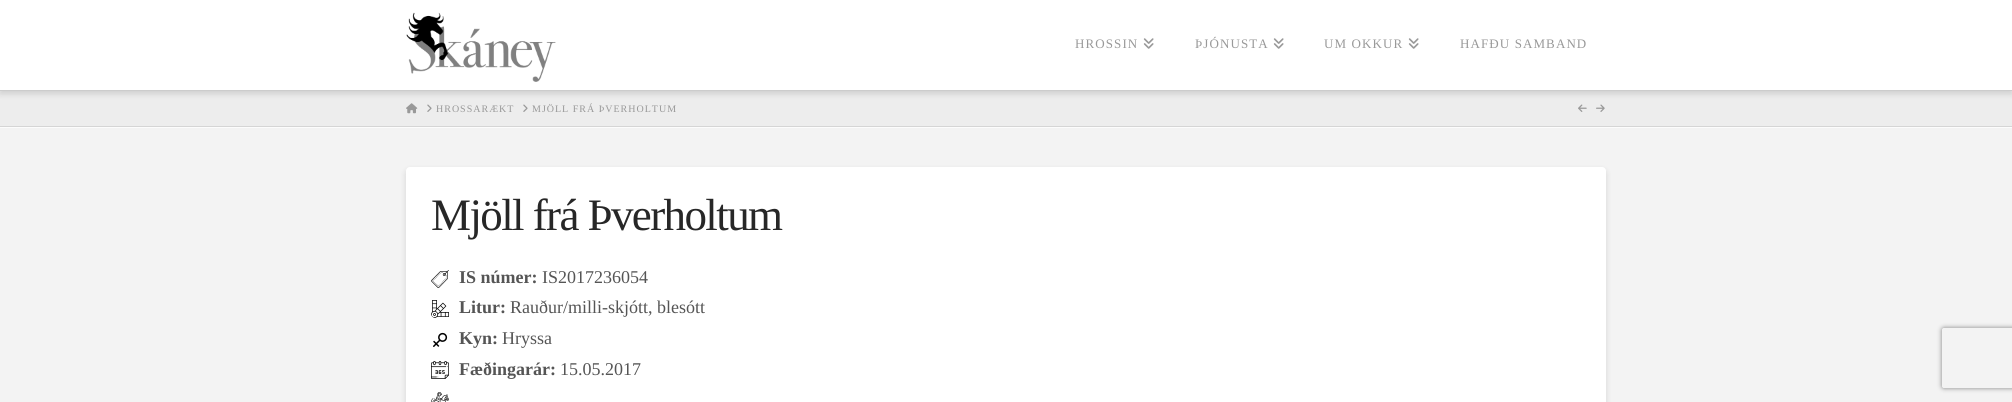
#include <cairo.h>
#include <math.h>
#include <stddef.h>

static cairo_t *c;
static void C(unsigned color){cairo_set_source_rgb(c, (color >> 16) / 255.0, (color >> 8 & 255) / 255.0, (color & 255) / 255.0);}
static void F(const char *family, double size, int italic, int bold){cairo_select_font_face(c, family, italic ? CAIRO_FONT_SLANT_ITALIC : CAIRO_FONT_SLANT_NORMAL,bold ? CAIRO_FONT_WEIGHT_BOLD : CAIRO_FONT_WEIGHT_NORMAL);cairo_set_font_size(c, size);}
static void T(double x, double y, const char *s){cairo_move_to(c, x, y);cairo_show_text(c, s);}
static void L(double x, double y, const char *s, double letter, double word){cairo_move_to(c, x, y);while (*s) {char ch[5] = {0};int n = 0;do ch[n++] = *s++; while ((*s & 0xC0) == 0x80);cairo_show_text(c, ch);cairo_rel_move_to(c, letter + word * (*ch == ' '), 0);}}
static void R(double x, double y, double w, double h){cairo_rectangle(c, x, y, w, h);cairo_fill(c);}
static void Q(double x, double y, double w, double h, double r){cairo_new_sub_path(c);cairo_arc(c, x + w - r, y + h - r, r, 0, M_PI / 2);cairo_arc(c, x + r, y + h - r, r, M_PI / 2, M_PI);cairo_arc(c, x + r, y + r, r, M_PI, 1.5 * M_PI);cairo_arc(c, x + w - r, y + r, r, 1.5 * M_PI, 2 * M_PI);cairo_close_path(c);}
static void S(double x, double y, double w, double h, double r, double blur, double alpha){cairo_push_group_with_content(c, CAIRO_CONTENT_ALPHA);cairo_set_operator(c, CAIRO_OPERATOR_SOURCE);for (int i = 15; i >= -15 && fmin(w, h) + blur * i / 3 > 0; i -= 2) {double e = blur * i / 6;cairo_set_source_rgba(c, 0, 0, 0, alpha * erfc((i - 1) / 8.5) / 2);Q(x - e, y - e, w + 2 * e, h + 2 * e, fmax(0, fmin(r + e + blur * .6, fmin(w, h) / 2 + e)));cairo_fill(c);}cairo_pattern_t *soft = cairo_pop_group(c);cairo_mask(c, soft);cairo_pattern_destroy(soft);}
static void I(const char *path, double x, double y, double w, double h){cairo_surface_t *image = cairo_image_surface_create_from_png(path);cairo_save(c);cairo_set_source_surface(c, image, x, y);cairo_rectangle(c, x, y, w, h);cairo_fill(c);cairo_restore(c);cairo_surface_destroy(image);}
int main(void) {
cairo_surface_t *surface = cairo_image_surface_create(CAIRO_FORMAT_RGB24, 2012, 402);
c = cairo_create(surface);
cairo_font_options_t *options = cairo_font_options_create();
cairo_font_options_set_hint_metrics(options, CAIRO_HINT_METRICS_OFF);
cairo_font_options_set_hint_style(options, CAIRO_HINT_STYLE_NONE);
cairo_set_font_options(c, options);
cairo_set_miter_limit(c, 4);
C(0xf3f3f3);
cairo_paint(c);
C(0xededed);
R(0,91,2012,35);
I("3.png",406,103,12,11);
C(0x000000);
S(0,3,2012,91,0,3,.13);
C(0xffffff);
R(0,0,2012,90);
C(0xcccccc);
R(0,90,2012,1);
I("1.png",406,12,150,70);
F("Liberation Serif",13,0,0);
C(0x999999);
L(1075,48,"HROSSIN",1.1,0);
I("2.png",1143,38,11,11);
L(1195,48,"ÞJÓNUSTA",1.1,0);
I("2.png",1273,38,11,11);
L(1324,48,"UM OKKUR",1.1,0);
I("2.png",1408,38,11,11);
L(1460,48,"HAFÐU SAMBAND",1.1,0);
C(0xfcfcfc);
R(0,127,2012,1);
C(0xd5d5d5);
R(0,126,2012,1);
I("4.png",427,104,5,8);
F("Liberation Serif",10,0,0);
C(0x999999);
L(436,112,"HROSSARÆKT",1,0);
I("4.png",523,104,5,8);
L(532,112,"MJÖLL FRÁ ÞVERHOLTUM",1,0);
I("5.png",1578,104,9,8);
I("6.png",1596,104,9,8);
C(0x000000);
S(406,170,1200,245,4,3,.13);
C(0xffffff);
Q(406,167,1200,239,4);
cairo_fill(c);
F("Liberation Serif",45,0,0);
C(0x272727);
L(431,230,"Mjöll frá Þverholtum",-1.6,0);
I("7.png",431,270,18,18);
F("Liberation Serif",18,0,1);
C(0x555555);
T(459,283,"IS númer:");
F("Liberation Serif",18,0,0);
T(542,283,"IS2017236054");
I("8.png",431,300,18,18);
F("Liberation Serif",18,0,1);
T(459,313,"Litur:");
F("Liberation Serif",18,0,0);
T(510,313,"Rauður/milli-skjótt, blesótt");
I("9.png",433,332,15,15);
F("Liberation Serif",18,0,1);
T(459,344,"Kyn:");
F("Liberation Serif",18,0,0);
T(502,344,"Hryssa");
I("10.png",431,361,18,18);
F("Liberation Serif",18,0,1);
T(459,375,"Fæðingarár:");
F("Liberation Serif",18,0,0);
T(560,375,"15.05.2017");
I("11.png",431,392,18,10);
cairo_save(c);
cairo_set_fill_rule(c,CAIRO_FILL_RULE_EVEN_ODD);
cairo_new_path(c);
cairo_move_to(c,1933,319);
cairo_line_to(c,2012,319);
cairo_line_to(c,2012,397);
cairo_line_to(c,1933,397);
cairo_close_path(c);
cairo_move_to(c,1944,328);
cairo_line_to(c,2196,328);
cairo_curve_to(c,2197,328,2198,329,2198,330);
cairo_line_to(c,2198,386);
cairo_curve_to(c,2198,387,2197,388,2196,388);
cairo_line_to(c,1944,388);
cairo_curve_to(c,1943,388,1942,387,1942,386);
cairo_line_to(c,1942,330);
cairo_curve_to(c,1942,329,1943,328,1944,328);
cairo_close_path(c);
cairo_clip(c);
C(0x808080);
S(1942,328,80,60,2,2.5,1);
cairo_restore(c);
cairo_surface_write_to_png(surface, "o.png");
cairo_font_options_destroy(options);
cairo_destroy(c);
cairo_surface_destroy(surface);
return 0;
}
